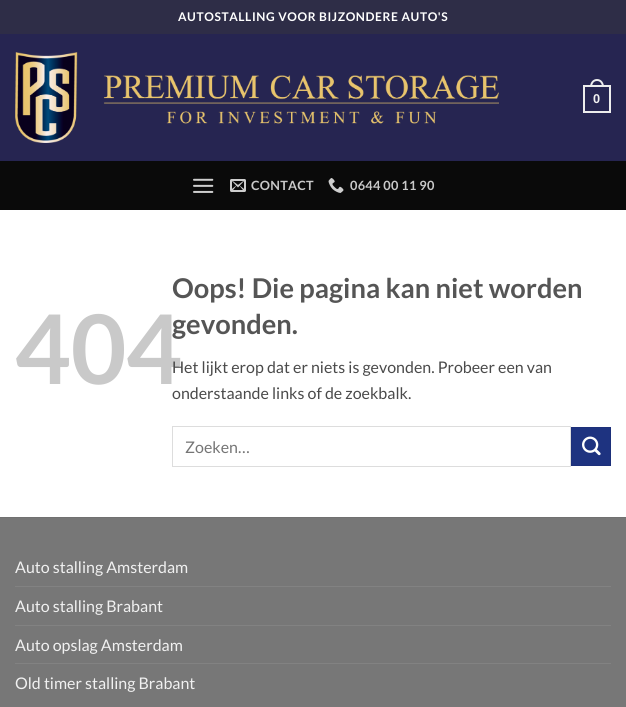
#include <cairo.h>
#include <math.h>
#include <stddef.h>

static cairo_t *c;
static void C(unsigned color){cairo_set_source_rgb(c, (color >> 16) / 255.0, (color >> 8 & 255) / 255.0, (color & 255) / 255.0);}
static void F(const char *family, double size, int italic, int bold){cairo_select_font_face(c, family, italic ? CAIRO_FONT_SLANT_ITALIC : CAIRO_FONT_SLANT_NORMAL,bold ? CAIRO_FONT_WEIGHT_BOLD : CAIRO_FONT_WEIGHT_NORMAL);cairo_set_font_size(c, size);}
static void T(double x, double y, const char *s){cairo_move_to(c, x, y);cairo_show_text(c, s);}
static void L(double x, double y, const char *s, double letter, double word){cairo_move_to(c, x, y);while (*s) {char ch[5] = {0};int n = 0;do ch[n++] = *s++; while ((*s & 0xC0) == 0x80);cairo_show_text(c, ch);cairo_rel_move_to(c, letter + word * (*ch == ' '), 0);}}
static void R(double x, double y, double w, double h){cairo_rectangle(c, x, y, w, h);cairo_fill(c);}
static void I(const char *path, double x, double y, double w, double h){cairo_surface_t *image = cairo_image_surface_create_from_png(path);cairo_save(c);cairo_set_source_surface(c, image, x, y);cairo_rectangle(c, x, y, w, h);cairo_fill(c);cairo_restore(c);cairo_surface_destroy(image);}
int main(void) {
cairo_surface_t *surface = cairo_image_surface_create(CAIRO_FORMAT_RGB24, 626, 707);
c = cairo_create(surface);
cairo_font_options_t *options = cairo_font_options_create();
cairo_font_options_set_hint_metrics(options, CAIRO_HINT_METRICS_OFF);
cairo_font_options_set_hint_style(options, CAIRO_HINT_STYLE_NONE);
cairo_set_font_options(c, options);
cairo_set_miter_limit(c, 4);
C(0xffffff);
cairo_paint(c);
C(0x2e2d47);
R(0,0,626,34);
F("Lato",12,0,1);
C(0xffffff);
L(178,21,"AUTOSTALLING VOOR BIJZONDERE AUTO'S",.6,0);
C(0x262551);
R(0,34,626,127);
I("1.png",15,52,484,91);
cairo_rectangle(c,584,86,26,26);
C(0xededed);
cairo_stroke(c);
cairo_set_fill_rule(c,CAIRO_FILL_RULE_EVEN_ODD);
cairo_new_path(c);
cairo_move_to(c,597,79);
cairo_curve_to(c,601.5,79,604,83,604,87);
cairo_line_to(c,590,87);
cairo_curve_to(c,590,83,592.5,79,597,79);
cairo_close_path(c);
cairo_move_to(c,597,81);
cairo_curve_to(c,600.5,81,602,84,602,87);
cairo_line_to(c,592,87);
cairo_curve_to(c,592,84,593.5,81,597,81);
cairo_close_path(c);
cairo_fill(c);
F("Liberation Sans",12.75,0,1);
C(0xf1f1f1);
T(593,103,"0");
C(0x0a0a0a);
R(0,161,626,49);
I("2.png",193,178,21,15);
I("3.png",230,179,16,13);
F("Lato",12.75,0,1);
C(0xc9c9c9);
L(251,190,"CONTACT",.25,0);
I("4.png",328,178,16,15);
L(350,190,"0644 00 11 90",.25,0);
F("Lato",96,0,1);
T(15,384,"404");
F("Lato",27.25,0,1);
C(0x555555);
T(172,298,"Oops! Die pagina kan niet worden");
T(172,334,"gevonden.");
F("Lato",16,0,0);
C(0x4a4a4a);
T(172,373,"Het lijkt erop dat er niets is gevonden. Probeer een van");
T(172,399,"onderstaande links of de zoekbalk.");
cairo_rectangle(c,172.5,426.5,398,40);
C(0xdddddd);
cairo_set_line_width(c,1);
cairo_stroke(c);
C(0x757575);
T(185,453,"Zoeken…");
C(0x1e3380);
cairo_rectangle(c,571.5,427.5,39,38);
cairo_fill_preserve(c);
C(0x1d307a);
cairo_stroke(c);
I("5.png",582,436,19,20);
C(0x777777);
R(0,518,626,189);
C(0x717171);
R(0,517,626,1);
C(0xf1f1f1);
T(15,573,"Auto stalling Amsterdam");
C(0x828282);
R(15,586,596,1);
C(0xf1f1f1);
T(15,612,"Auto stalling Brabant");
C(0x828282);
R(15,625,596,1);
C(0xf1f1f1);
T(15,651,"Auto opslag Amsterdam");
C(0x828282);
R(15,663,596,1);
C(0xf1f1f1);
T(15,689,"Old timer stalling Brabant");
cairo_surface_write_to_png(surface, "o.png");
cairo_font_options_destroy(options);
cairo_destroy(c);
cairo_surface_destroy(surface);
return 0;
}
